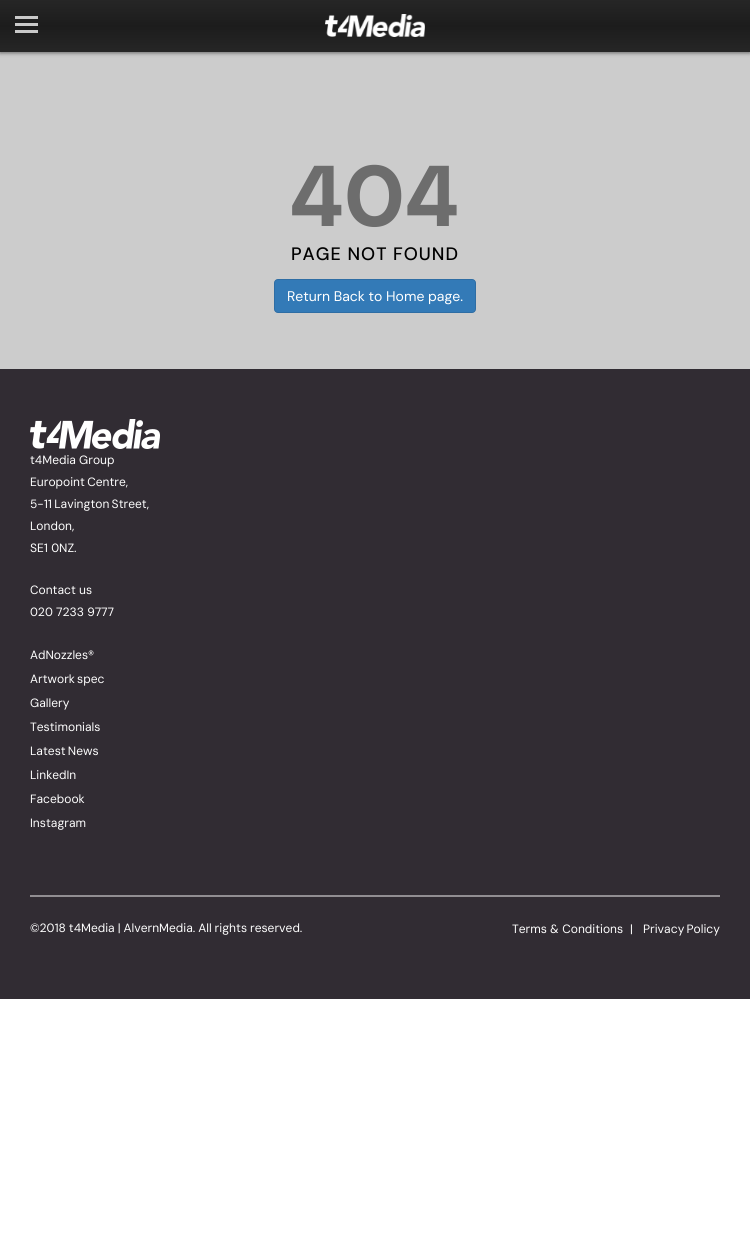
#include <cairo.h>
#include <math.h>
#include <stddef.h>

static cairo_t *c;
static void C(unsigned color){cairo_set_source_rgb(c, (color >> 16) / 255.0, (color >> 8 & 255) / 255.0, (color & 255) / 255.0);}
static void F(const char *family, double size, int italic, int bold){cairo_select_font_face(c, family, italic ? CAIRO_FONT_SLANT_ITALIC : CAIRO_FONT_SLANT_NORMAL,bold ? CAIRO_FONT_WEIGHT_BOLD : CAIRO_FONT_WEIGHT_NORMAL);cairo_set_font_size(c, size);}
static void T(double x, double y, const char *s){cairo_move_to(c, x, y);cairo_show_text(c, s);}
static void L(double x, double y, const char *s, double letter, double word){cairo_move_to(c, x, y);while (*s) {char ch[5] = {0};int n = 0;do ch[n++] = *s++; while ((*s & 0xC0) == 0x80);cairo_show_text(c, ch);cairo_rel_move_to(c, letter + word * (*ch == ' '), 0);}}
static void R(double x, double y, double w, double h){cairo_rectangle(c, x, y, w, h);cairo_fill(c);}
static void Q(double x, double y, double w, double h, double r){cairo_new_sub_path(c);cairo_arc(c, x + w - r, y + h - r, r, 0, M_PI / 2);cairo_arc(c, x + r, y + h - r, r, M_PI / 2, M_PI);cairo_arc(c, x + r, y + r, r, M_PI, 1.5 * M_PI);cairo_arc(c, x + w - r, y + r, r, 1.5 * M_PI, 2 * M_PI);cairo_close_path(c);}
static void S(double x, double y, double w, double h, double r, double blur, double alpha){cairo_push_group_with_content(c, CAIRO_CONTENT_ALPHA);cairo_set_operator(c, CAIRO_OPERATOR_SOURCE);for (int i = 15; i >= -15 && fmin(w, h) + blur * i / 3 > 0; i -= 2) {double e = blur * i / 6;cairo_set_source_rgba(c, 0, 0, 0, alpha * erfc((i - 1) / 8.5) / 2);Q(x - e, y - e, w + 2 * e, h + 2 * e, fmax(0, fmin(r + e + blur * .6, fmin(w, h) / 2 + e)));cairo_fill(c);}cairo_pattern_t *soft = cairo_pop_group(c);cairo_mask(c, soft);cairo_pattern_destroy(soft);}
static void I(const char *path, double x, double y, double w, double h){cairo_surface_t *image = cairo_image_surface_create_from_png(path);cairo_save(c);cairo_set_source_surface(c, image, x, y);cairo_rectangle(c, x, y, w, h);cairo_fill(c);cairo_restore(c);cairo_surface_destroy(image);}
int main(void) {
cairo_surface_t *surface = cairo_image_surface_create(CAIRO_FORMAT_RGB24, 750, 1240);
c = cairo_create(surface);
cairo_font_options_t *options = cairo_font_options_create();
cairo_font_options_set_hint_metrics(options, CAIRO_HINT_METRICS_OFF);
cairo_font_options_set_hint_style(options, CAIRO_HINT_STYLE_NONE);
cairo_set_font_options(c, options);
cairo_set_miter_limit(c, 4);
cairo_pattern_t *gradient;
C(0xffffff);
cairo_paint(c);
C(0xcccccc);
R(0,52,750,317);
C(0x000000);
S(0,1,750,52,0,2,.5);
gradient = cairo_pattern_create_linear(375,0,375,52);
cairo_pattern_add_color_stop_rgba(gradient,0,0.149,0.149,0.149,1);
cairo_pattern_add_color_stop_rgba(gradient,.5,0.11,0.11,0.11,1);
cairo_pattern_add_color_stop_rgba(gradient,1,0.149,0.149,0.149,1);
cairo_set_source(c,gradient);
cairo_pattern_destroy(gradient);
R(0,0,750,52);
I("1.png",325,14,100,23);
C(0xc9c9c9);
R(15,23,23,3);
R(15,16,23,3);
R(15,30,23,3);
F("DM Sans ExtraBold",86,0,0);
C(0x6d6d6d);
L(290,226,"404",1,0);
F("DM Sans Medium",18,0,0);
C(0x000000);
L(291,260,"PAGE NOT FOUND",1,0);
C(0x337ab7);
Q(274.5,279.5,201,33,3.5);
cairo_fill_preserve(c);
C(0x2e6da4);
cairo_set_line_width(c,1);
cairo_stroke(c);
F("DM Sans",14,0,0);
C(0xffffff);
T(287,301,"Return Back to Home page.");
C(0x312c33);
R(0,369,750,630);
I("2.png",30,419,130,30);
F("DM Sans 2",12,0,0);
C(0xffffff);
T(30,464,"t4Media Group");
L(30,486,"Europoint Centre,",0,-1);
L(30,508,"5-11 Lavington Street,",0,-1);
T(30,530,"London,");
T(30,552,"SE1 0NZ.");
T(30,594,"Contact us");
T(30,616,"020 7233 9777");
T(30,659,"AdNozzles®");
L(30,683,"Artwork spec",0,-1);
T(30,707,"Gallery");
T(30,731,"Testimonials");
L(30,755,"Latest News",0,-1);
T(30,779,"LinkedIn");
T(30,803,"Facebook");
T(30,827,"Instagram");
C(0x918e92);
R(30,895,690,2);
C(0xffffff);
L(30,932,"©2018 t4Media | AlvernMedia. All rights reserved.",0,-.25);
T(512,933,"Terms & Conditions");
T(630,933,"|");
L(643,933,"Privacy Policy",0,-1);
cairo_surface_write_to_png(surface, "o.png");
cairo_font_options_destroy(options);
cairo_destroy(c);
cairo_surface_destroy(surface);
return 0;
}
